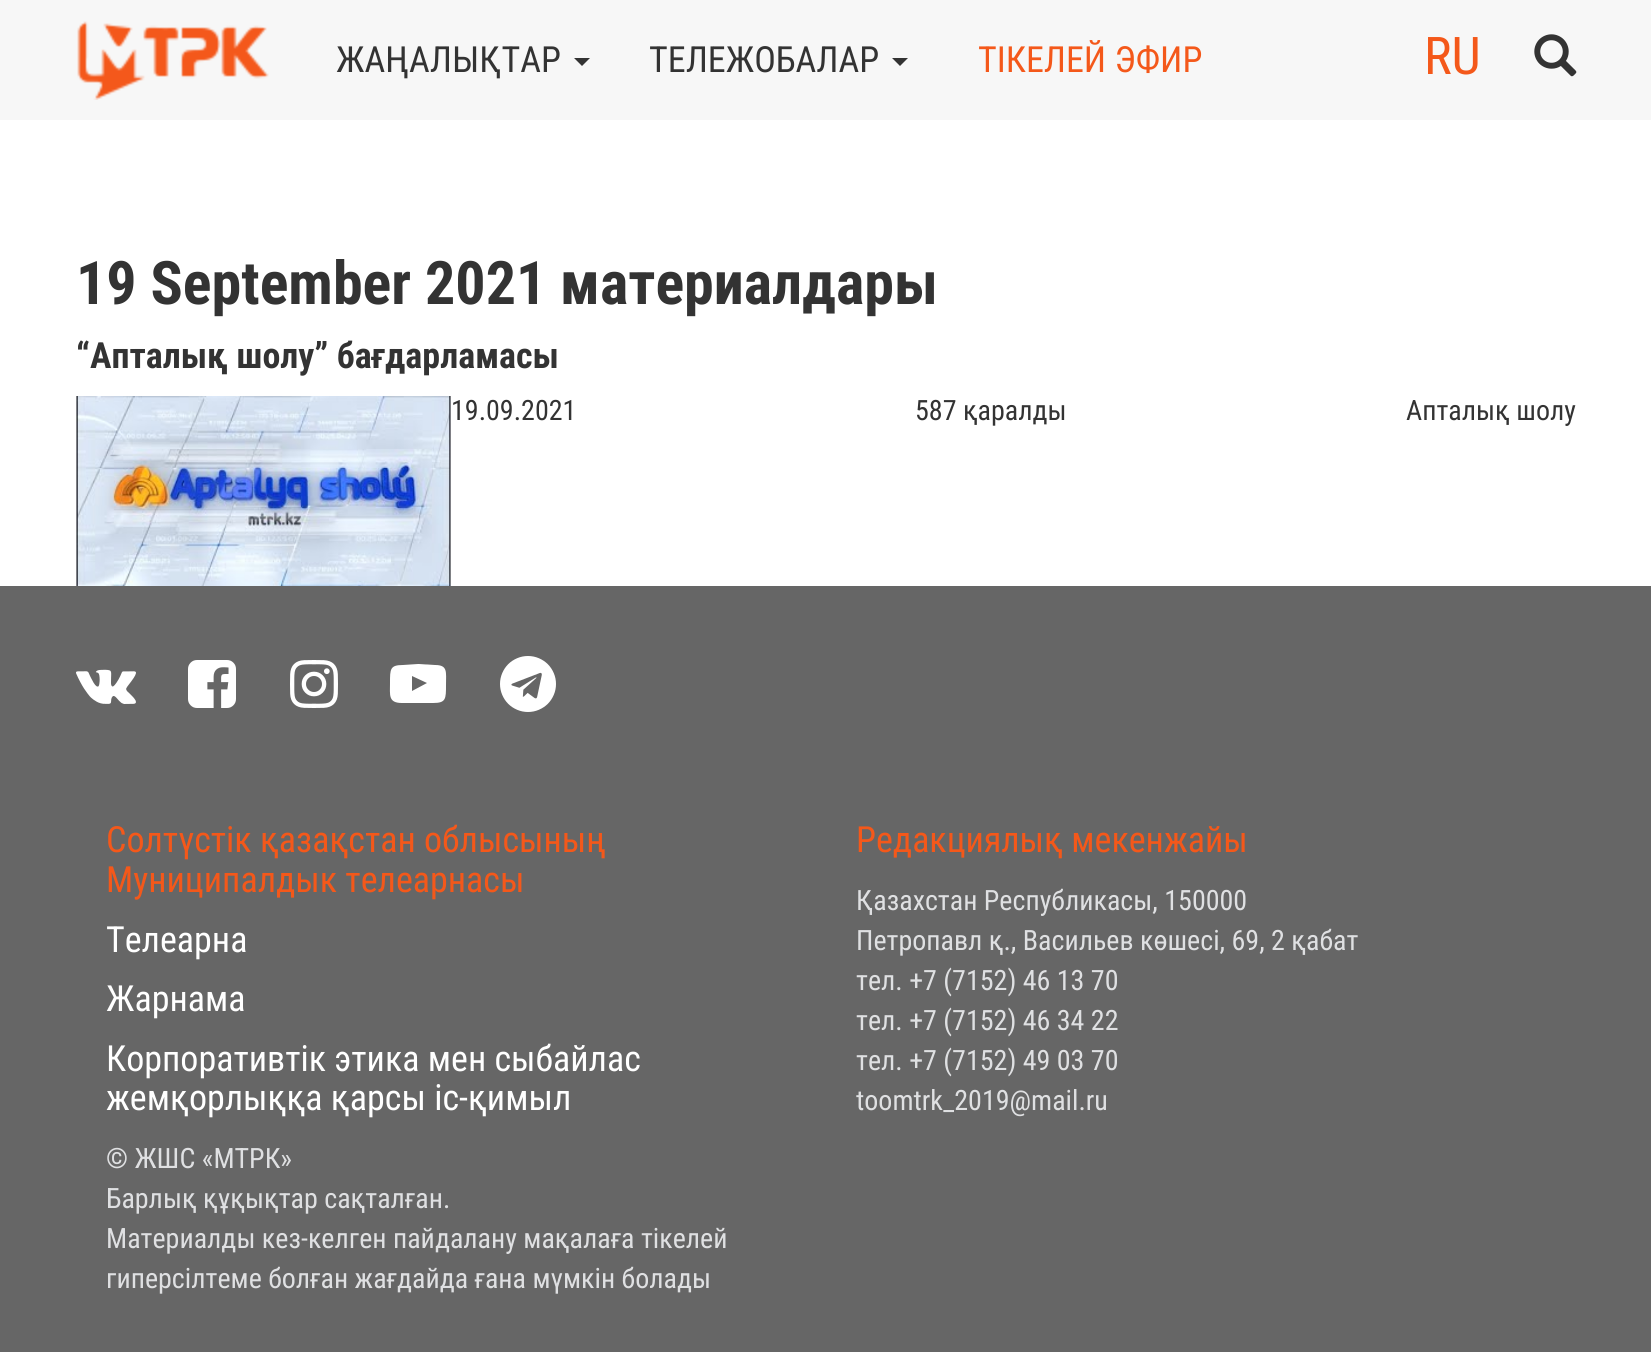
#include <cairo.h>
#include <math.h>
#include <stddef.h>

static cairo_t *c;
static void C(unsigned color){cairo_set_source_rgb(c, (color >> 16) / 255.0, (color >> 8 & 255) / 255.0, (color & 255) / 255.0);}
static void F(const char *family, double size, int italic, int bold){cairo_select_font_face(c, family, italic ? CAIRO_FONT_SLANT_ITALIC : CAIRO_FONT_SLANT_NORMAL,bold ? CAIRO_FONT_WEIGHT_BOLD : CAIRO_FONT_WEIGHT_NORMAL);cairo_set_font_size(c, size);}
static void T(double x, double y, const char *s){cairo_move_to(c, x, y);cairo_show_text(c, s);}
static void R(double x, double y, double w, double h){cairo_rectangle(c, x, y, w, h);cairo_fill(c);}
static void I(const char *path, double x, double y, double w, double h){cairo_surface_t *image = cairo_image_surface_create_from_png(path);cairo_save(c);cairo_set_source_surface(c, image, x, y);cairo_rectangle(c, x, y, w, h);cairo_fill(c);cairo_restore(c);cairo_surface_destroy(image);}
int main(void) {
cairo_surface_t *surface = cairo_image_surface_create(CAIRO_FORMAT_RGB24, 1651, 1352);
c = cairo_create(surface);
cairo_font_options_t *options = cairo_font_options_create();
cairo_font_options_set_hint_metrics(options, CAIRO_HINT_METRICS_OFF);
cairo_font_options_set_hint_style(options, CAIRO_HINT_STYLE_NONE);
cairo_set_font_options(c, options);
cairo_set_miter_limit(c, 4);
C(0xffffff);
cairo_paint(c);
C(0xf7f7f7);
R(0,0,1651,120);
I("1.png",77,21,192,79);
F("Roboto Condensed",36,0,0);
C(0x333333);
T(336,72,"ЖАҢАЛЫҚТАР");
cairo_new_path(c);
cairo_move_to(c,574,58);
cairo_line_to(c,590,58);
cairo_line_to(c,582,66);
cairo_close_path(c);
cairo_fill(c);
T(649,72,"ТЕЛЕЖОБАЛАР");
cairo_new_path(c);
cairo_move_to(c,892,58);
cairo_line_to(c,908,58);
cairo_line_to(c,900,66);
cairo_close_path(c);
cairo_fill(c);
C(0xf4581a);
T(978,72,"ТІКЕЛЕЙ ЭФИР");
F("Roboto Condensed",52,0,0);
T(1424,74,"RU");
I("2.png",1534,34,43,43);
F("Roboto Condensed",60,0,1);
C(0x333333);
T(76,304,"19 September 2021 материалдары");
F("Roboto Condensed",36,0,1);
T(76,368,"“Апталық шолу” бағдарламасы");
I("3.png",76,396,375,190);
F("Roboto Condensed",28,0,0);
T(451,420,"19.09.2021");
T(915,420,"587 қаралды");
T(1406,420,"Апталық шолу");
C(0x666666);
R(0,586,1651,766);
I("4.png",76,669,60,35);
I("5.png",188,660,48,48);
I("6.png",290,660,48,48);
C(0xffffff);
cairo_new_path(c);
cairo_move_to(c,412,691);
cairo_line_to(c,427,683);
cairo_line_to(c,412,676);
cairo_close_path(c);
cairo_move_to(c,418,664);
cairo_line_to(c,435,665);
cairo_curve_to(c,448,665,446,672,446,685);
cairo_curve_to(c,446,699,446,703,433,703);
cairo_line_to(c,402,703);
cairo_curve_to(c,388,703,390,695,390,683);
cairo_curve_to(c,390,669,390,665,403,665);
cairo_close_path(c);
cairo_fill(c);
I("7.png",500,656,56,56);
F("Roboto Condensed",36,0,0);
C(0xf4581a);
T(106,852,"Солтүстік қазақстан облысының");
T(106,892,"Муниципалдык телеарнасы");
C(0xffffff);
T(106,952,"Телеарна");
T(106,1011,"Жарнама");
T(106,1071,"Корпоративтік этика мен сыбайлас");
T(106,1110,"жемқорлыққа қарсы іс-қимыл");
F("Roboto Condensed",28,0,0);
C(0xdfe0e2);
T(106,1168,"© ЖШС «МТРК»");
T(106,1208,"Барлық құқықтар сақталған.");
T(106,1248,"Материалды кез-келген пайдалану мақалаға тікелей");
T(106,1288,"гиперсілтеме болған жағдайда ғана мүмкін болады");
F("Roboto Condensed",36,0,0);
C(0xf4581a);
T(856,852,"Редакциялық мекенжайы");
F("Roboto Condensed",28,0,0);
C(0xdfe0e2);
T(856,910,"Қазахстан Республикасы, 150000");
T(856,950,"Петропавл қ., Васильев көшесі, 69, 2 қабат");
T(856,990,"тел. +7 (7152) 46 13 70");
T(856,1030,"тел. +7 (7152) 46 34 22");
T(856,1070,"тел. +7 (7152) 49 03 70");
T(856,1110,"toomtrk_2019@mail.ru");
cairo_surface_write_to_png(surface, "o.png");
cairo_font_options_destroy(options);
cairo_destroy(c);
cairo_surface_destroy(surface);
return 0;
}
